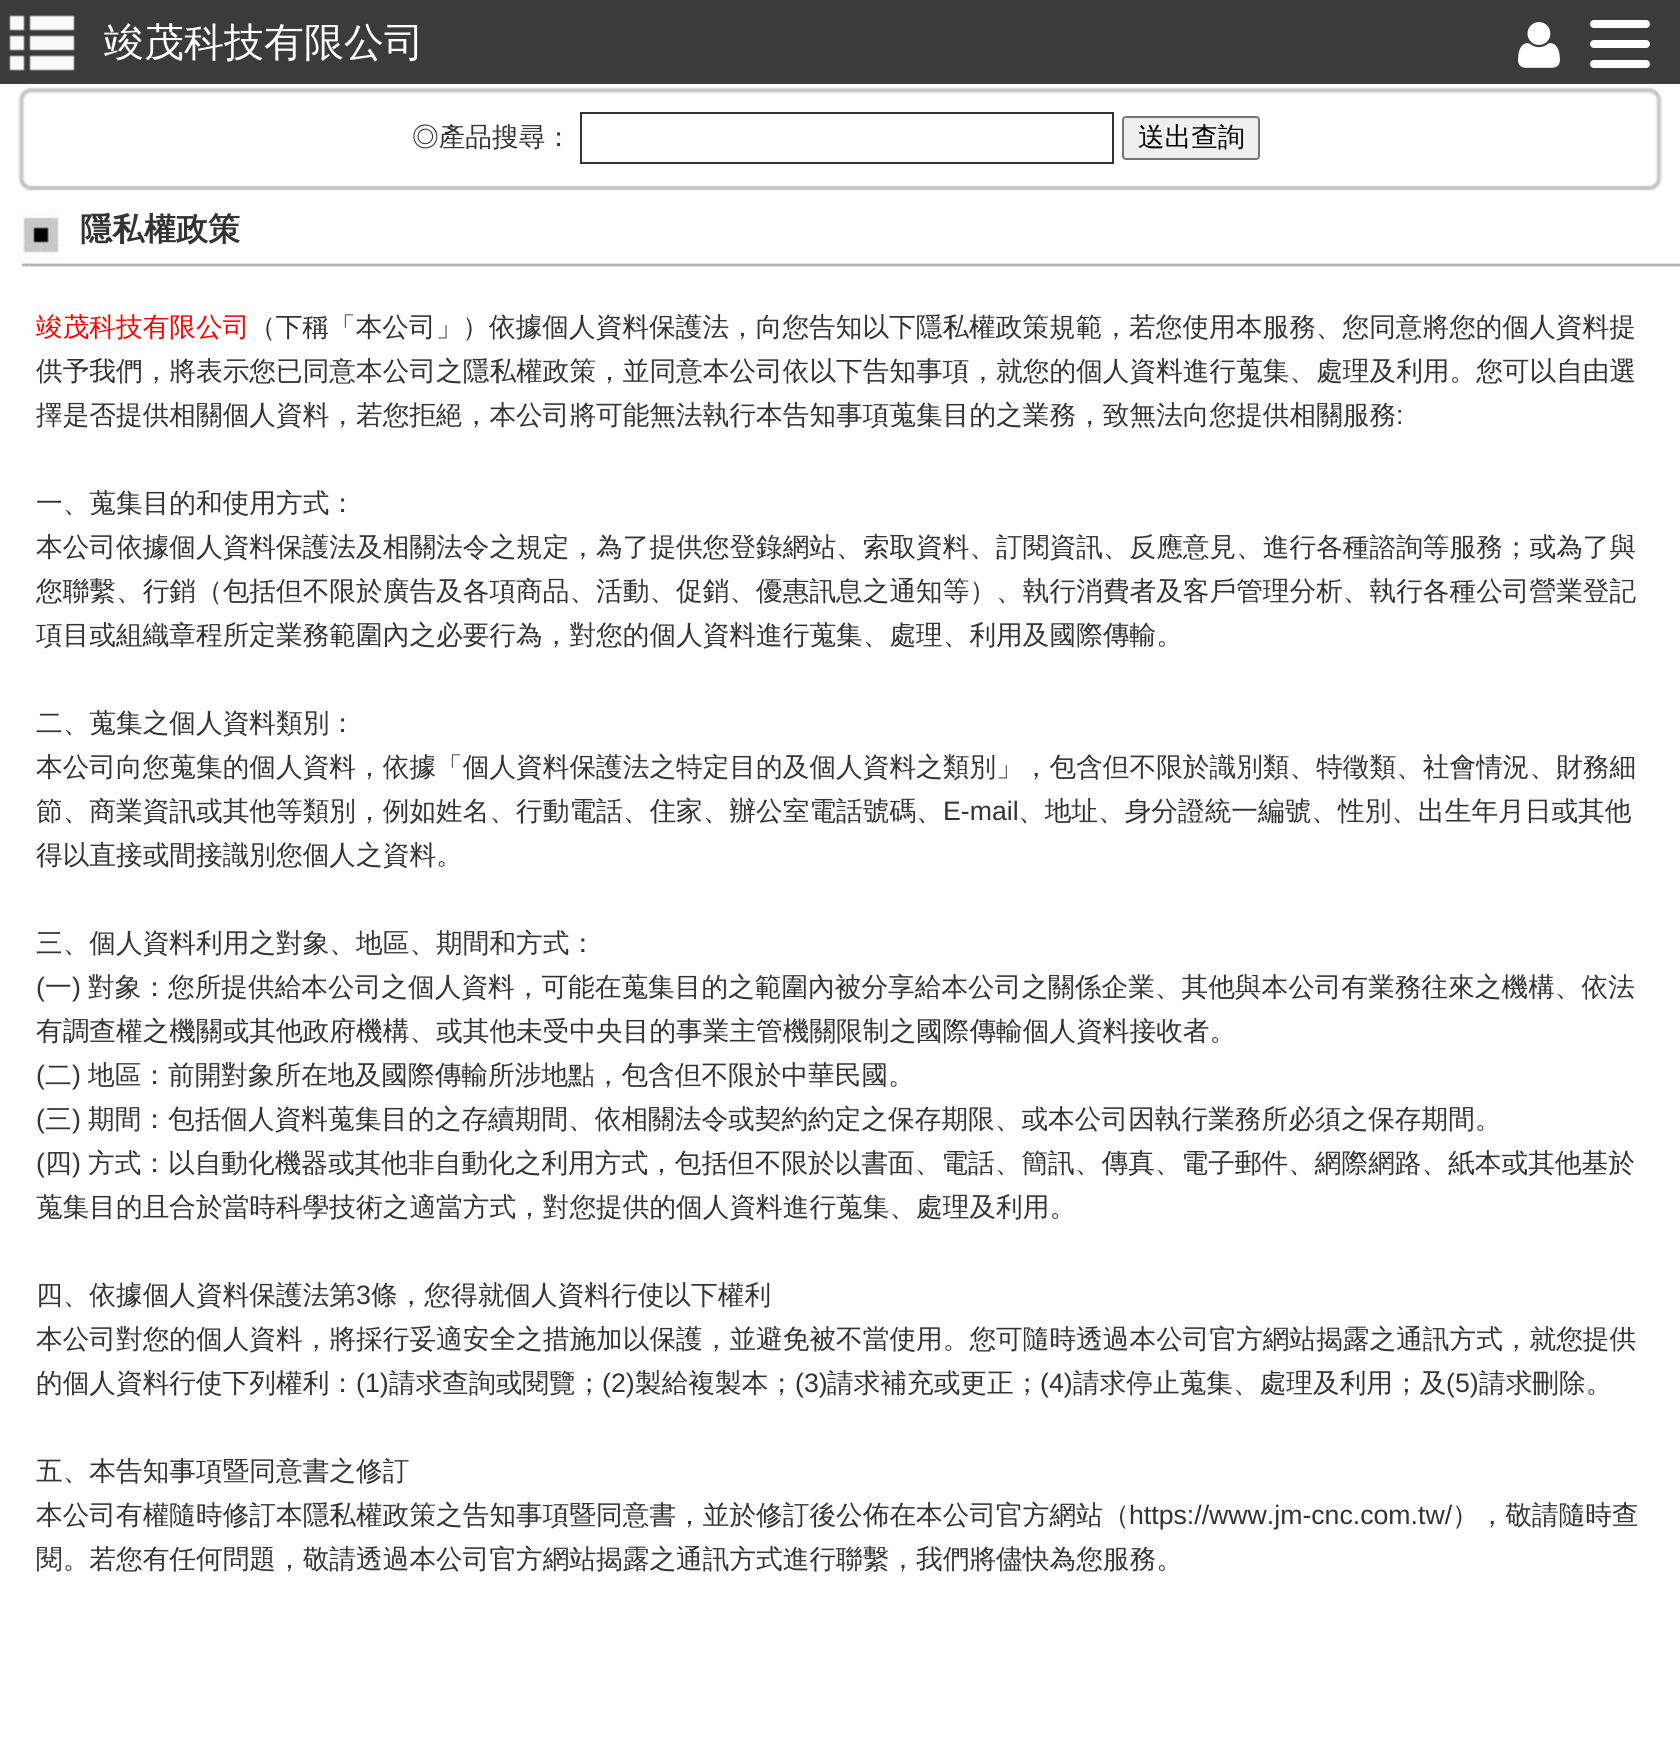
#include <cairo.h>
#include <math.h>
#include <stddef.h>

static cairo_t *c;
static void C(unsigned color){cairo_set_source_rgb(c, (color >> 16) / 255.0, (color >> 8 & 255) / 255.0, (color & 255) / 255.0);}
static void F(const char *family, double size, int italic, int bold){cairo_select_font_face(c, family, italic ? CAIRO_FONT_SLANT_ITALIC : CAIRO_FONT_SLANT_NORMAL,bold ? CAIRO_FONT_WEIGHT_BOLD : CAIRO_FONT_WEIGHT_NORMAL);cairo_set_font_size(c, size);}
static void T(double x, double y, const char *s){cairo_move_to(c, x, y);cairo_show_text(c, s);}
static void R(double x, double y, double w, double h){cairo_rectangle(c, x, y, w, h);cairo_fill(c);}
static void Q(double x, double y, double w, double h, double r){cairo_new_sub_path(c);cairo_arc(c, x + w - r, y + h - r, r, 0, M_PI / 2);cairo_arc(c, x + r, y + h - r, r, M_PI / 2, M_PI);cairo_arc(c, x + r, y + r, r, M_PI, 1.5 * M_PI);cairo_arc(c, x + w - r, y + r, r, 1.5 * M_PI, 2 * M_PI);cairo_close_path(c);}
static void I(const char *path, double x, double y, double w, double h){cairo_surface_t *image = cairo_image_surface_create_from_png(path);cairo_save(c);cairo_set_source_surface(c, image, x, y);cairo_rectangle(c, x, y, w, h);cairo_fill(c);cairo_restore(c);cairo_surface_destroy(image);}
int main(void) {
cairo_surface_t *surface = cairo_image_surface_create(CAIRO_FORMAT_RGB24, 1680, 1747);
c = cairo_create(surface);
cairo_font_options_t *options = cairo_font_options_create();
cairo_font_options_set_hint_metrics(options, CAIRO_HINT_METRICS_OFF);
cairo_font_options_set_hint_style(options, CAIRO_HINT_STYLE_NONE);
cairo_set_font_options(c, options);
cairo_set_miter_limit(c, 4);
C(0xffffff);
cairo_paint(c);
C(0x3b3b3b);
R(0,0,1680,84);
I("1.png",9,15,66,56);
F("WenQuanYi Zen Hei Medium",40,0,0);
C(0xffffff);
T(104,56,"竣茂科技有限公司");
I("2.png",1518,22,42,46);
Q(1590,40,60,8,4);
cairo_fill(c);
Q(1590,20,60,8,4);
cairo_fill(c);
Q(1590,60,60,8,4);
cairo_fill(c);
I("3.png",17,87,23,21);
I("4.png",40,87,1600,7);
I("5.png",1640,87,23,21);
I("6.png",17,108,8,60);
F("WenQuanYi Zen Hei Medium",26.67,0,0);
C(0x333333);
T(412,146,"◎產品搜尋：");
cairo_rectangle(c,581,113,532,50);
cairo_stroke(c);
C(0xefefef);
Q(1123,117,136,42,3);
cairo_fill_preserve(c);
C(0x767676);
cairo_stroke(c);
C(0x000000);
T(1138,146,"送出查詢");
I("7.png",1655,108,8,60);
I("8.png",17,168,23,23);
I("9.png",40,185,1600,6);
I("10.png",1640,168,23,23);
I("11.png",18,209,1662,61);
F("WenQuanYi Zen Hei",32,0,1);
C(0x333333);
T(80,240,"隱私權政策");
F("WenQuanYi Zen Hei Medium",26.67,0,0);
C(0xff0000);
T(36,336,"竣茂科技有限公司");
C(0x333333);
T(249,336,"（下稱「本公司」）依據個人資料保護法，向您告知以下隱私權政策規範，若您使用本服務、您同意將您的個人資料提");
T(36,380,"供予我們，將表示您已同意本公司之隱私權政策，並同意本公司依以下告知事項，就您的個人資料進行蒐集、處理及利用。您可以自由選");
T(36,424,"擇是否提供相關個人資料，若您拒絕，本公司將可能無法執行本告知事項蒐集目的之業務，致無法向您提供相關服務");
F("Liberation Sans",26.67,0,0);
T(1396,424,":");
F("WenQuanYi Zen Hei Medium",26.67,0,0);
T(36,512,"一、蒐集目的和使用方式：");
T(36,556,"本公司依據個人資料保護法及相關法令之規定，為了提供您登錄網站、索取資料、訂閱資訊、反應意見、進行各種諮詢等服務；或為了與");
T(36,600,"您聯繫、行銷（包括但不限於廣告及各項商品、活動、促銷、優惠訊息之通知等）、執行消費者及客戶管理分析、執行各種公司營業登記");
T(36,644,"項目或組織章程所定業務範圍內之必要行為，對您的個人資料進行蒐集、處理、利用及國際傳輸。");
T(36,732,"二、蒐集之個人資料類別：");
T(36,776,"本公司向您蒐集的個人資料，依據「個人資料保護法之特定目的及個人資料之類別」，包含但不限於識別類、特徵類、社會情況、財務細");
T(36,820,"節、商業資訊或其他等類別，例如姓名、行動電話、住家、辦公室電話號碼、");
F("Liberation Sans",26.67,0,0);
T(943,820,"E-mail");
F("WenQuanYi Zen Hei Medium",26.67,0,0);
T(1018,820,"、地址、身分證統一編號、性別、出生年月日或其他");
T(36,864,"得以直接或間接識別您個人之資料。");
T(36,952,"三、個人資料利用之對象、地區、期間和方式：");
F("Liberation Sans",26.67,0,0);
T(36,996,"(");
F("WenQuanYi Zen Hei Medium",26.67,0,0);
T(45,996,"一");
F("Liberation Sans",26.67,0,0);
T(72,996,")");
F("WenQuanYi Zen Hei Medium",26.67,0,0);
T(88,996,"對象：您所提供給本公司之個人資料，可能在蒐集目的之範圍內被分享給本公司之關係企業、其他與本公司有業務往來之機構、依法");
T(36,1040,"有調查權之機關或其他政府機構、或其他未受中央目的事業主管機關限制之國際傳輸個人資料接收者。");
F("Liberation Sans",26.67,0,0);
T(36,1084,"(");
F("WenQuanYi Zen Hei Medium",26.67,0,0);
T(45,1084,"二");
F("Liberation Sans",26.67,0,0);
T(72,1084,")");
F("WenQuanYi Zen Hei Medium",26.67,0,0);
T(88,1084,"地區：前開對象所在地及國際傳輸所涉地點，包含但不限於中華民國。");
F("Liberation Sans",26.67,0,0);
T(36,1128,"(");
F("WenQuanYi Zen Hei Medium",26.67,0,0);
T(45,1128,"三");
F("Liberation Sans",26.67,0,0);
T(72,1128,")");
F("WenQuanYi Zen Hei Medium",26.67,0,0);
T(88,1128,"期間：包括個人資料蒐集目的之存續期間、依相關法令或契約約定之保存期限、或本公司因執行業務所必須之保存期間。");
F("Liberation Sans",26.67,0,0);
T(36,1172,"(");
F("WenQuanYi Zen Hei Medium",26.67,0,0);
T(45,1172,"四");
F("Liberation Sans",26.67,0,0);
T(72,1172,")");
F("WenQuanYi Zen Hei Medium",26.67,0,0);
T(88,1172,"方式：以自動化機器或其他非自動化之利用方式，包括但不限於以書面、電話、簡訊、傳真、電子郵件、網際網路、紙本或其他基於");
T(36,1216,"蒐集目的且合於當時科學技術之適當方式，對您提供的個人資料進行蒐集、處理及利用。");
T(36,1304,"四、依據個人資料保護法第");
F("Liberation Sans",26.67,0,0);
T(356,1304,"3");
F("WenQuanYi Zen Hei Medium",26.67,0,0);
T(371,1304,"條，您得就個人資料行使以下權利");
T(36,1348,"本公司對您的個人資料，將採行妥適安全之措施加以保護，並避免被不當使用。您可隨時透過本公司官方網站揭露之通訊方式，就您提供");
T(36,1392,"的個人資料行使下列權利：");
F("Liberation Sans",26.67,0,0);
T(356,1392,"(1)");
F("WenQuanYi Zen Hei Medium",26.67,0,0);
T(389,1392,"請求查詢或閱覽；");
F("Liberation Sans",26.67,0,0);
T(602,1392,"(2)");
F("WenQuanYi Zen Hei Medium",26.67,0,0);
T(635,1392,"製給複製本；");
F("Liberation Sans",26.67,0,0);
T(795,1392,"(3)");
F("WenQuanYi Zen Hei Medium",26.67,0,0);
T(827,1392,"請求補充或更正；");
F("Liberation Sans",26.67,0,0);
T(1040,1392,"(4)");
F("WenQuanYi Zen Hei Medium",26.67,0,0);
T(1073,1392,"請求停止蒐集、處理及利用；及");
F("Liberation Sans",26.67,0,0);
T(1446,1392,"(5)");
F("WenQuanYi Zen Hei Medium",26.67,0,0);
T(1479,1392,"請求刪除。");
T(36,1480,"五、本告知事項暨同意書之修訂");
T(36,1524,"本公司有權隨時修訂本隱私權政策之告知事項暨同意書，並於修訂後公佈在本公司官方網站（");
F("Liberation Sans",26.67,0,0);
T(1129,1524,"https://www.jm-cnc.com.tw/");
F("WenQuanYi Zen Hei Medium",26.67,0,0);
T(1452,1524,"），敬請隨時查");
T(36,1568,"閱。若您有任何問題，敬請透過本公司官方網站揭露之通訊方式進行聯繫，我們將儘快為您服務。");
cairo_surface_write_to_png(surface, "o.png");
cairo_font_options_destroy(options);
cairo_destroy(c);
cairo_surface_destroy(surface);
return 0;
}
